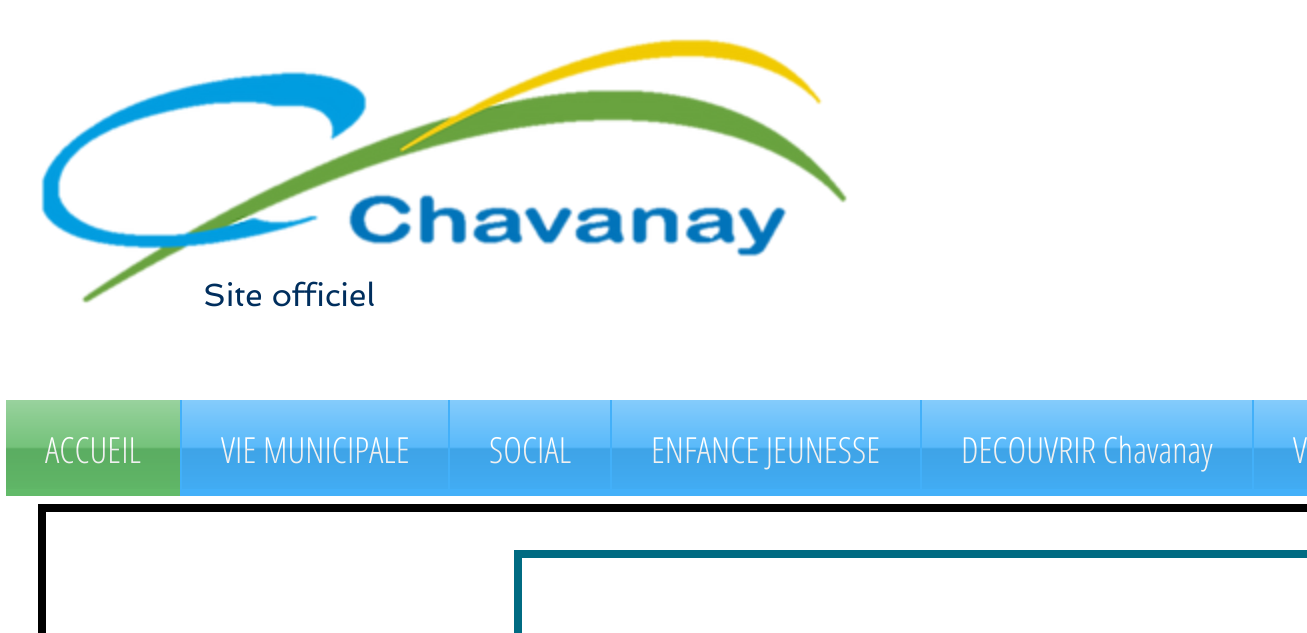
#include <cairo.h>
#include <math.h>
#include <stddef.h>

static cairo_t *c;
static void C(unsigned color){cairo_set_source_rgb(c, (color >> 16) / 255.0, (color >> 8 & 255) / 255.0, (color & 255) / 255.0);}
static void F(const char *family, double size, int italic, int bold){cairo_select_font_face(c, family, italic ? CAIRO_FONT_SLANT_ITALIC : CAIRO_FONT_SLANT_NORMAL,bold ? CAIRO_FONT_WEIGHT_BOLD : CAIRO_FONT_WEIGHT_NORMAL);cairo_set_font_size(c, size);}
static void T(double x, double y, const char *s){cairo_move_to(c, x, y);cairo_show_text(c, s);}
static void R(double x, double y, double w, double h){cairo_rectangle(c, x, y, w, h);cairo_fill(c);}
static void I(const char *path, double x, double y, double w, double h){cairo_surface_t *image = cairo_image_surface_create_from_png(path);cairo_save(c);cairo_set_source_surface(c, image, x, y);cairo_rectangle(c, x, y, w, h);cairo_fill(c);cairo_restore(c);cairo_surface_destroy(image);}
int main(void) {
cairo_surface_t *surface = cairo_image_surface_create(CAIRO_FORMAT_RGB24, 1307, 633);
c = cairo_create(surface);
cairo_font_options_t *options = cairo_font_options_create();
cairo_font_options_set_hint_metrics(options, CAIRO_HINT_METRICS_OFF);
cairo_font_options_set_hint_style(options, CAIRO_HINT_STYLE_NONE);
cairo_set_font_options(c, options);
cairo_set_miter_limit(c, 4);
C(0xffffff);
cairo_paint(c);
I("1.png",41,38,807,266);
F("Spinnaker",32,0,0);
C(0x002e5d);
T(203,306,"Site officiel");
C(0x62ba69);
R(6,400,174,96);
F("Open Sans Condensed Light",36,0,0);
C(0xffffff);
T(45,463,"ACCUEIL");
I("2.png",6,400,174,89);
C(0x43b0f9);
R(180,400,1127,96);
C(0xffffff);
T(221,463,"VIE MUNICIPALE");
I("3.png",182,400,266,89);
T(489,463,"SOCIAL");
I("4.png",450,400,160,89);
T(651,463,"ENFANCE JEUNESSE");
I("5.png",612,400,308,89);
T(961,463,"DECOUVRIR Chavanay");
I("6.png",922,400,330,89);
T(1293,463,"V");
I("7.png",1254,400,53,89);
cairo_rectangle(c,42,508,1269,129);
C(0x000000);
cairo_set_line_width(c,8);
cairo_stroke(c);
cairo_rectangle(c,518,554,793,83);
C(0x006b82);
cairo_stroke(c);
cairo_surface_write_to_png(surface, "o.png");
cairo_font_options_destroy(options);
cairo_destroy(c);
cairo_surface_destroy(surface);
return 0;
}
